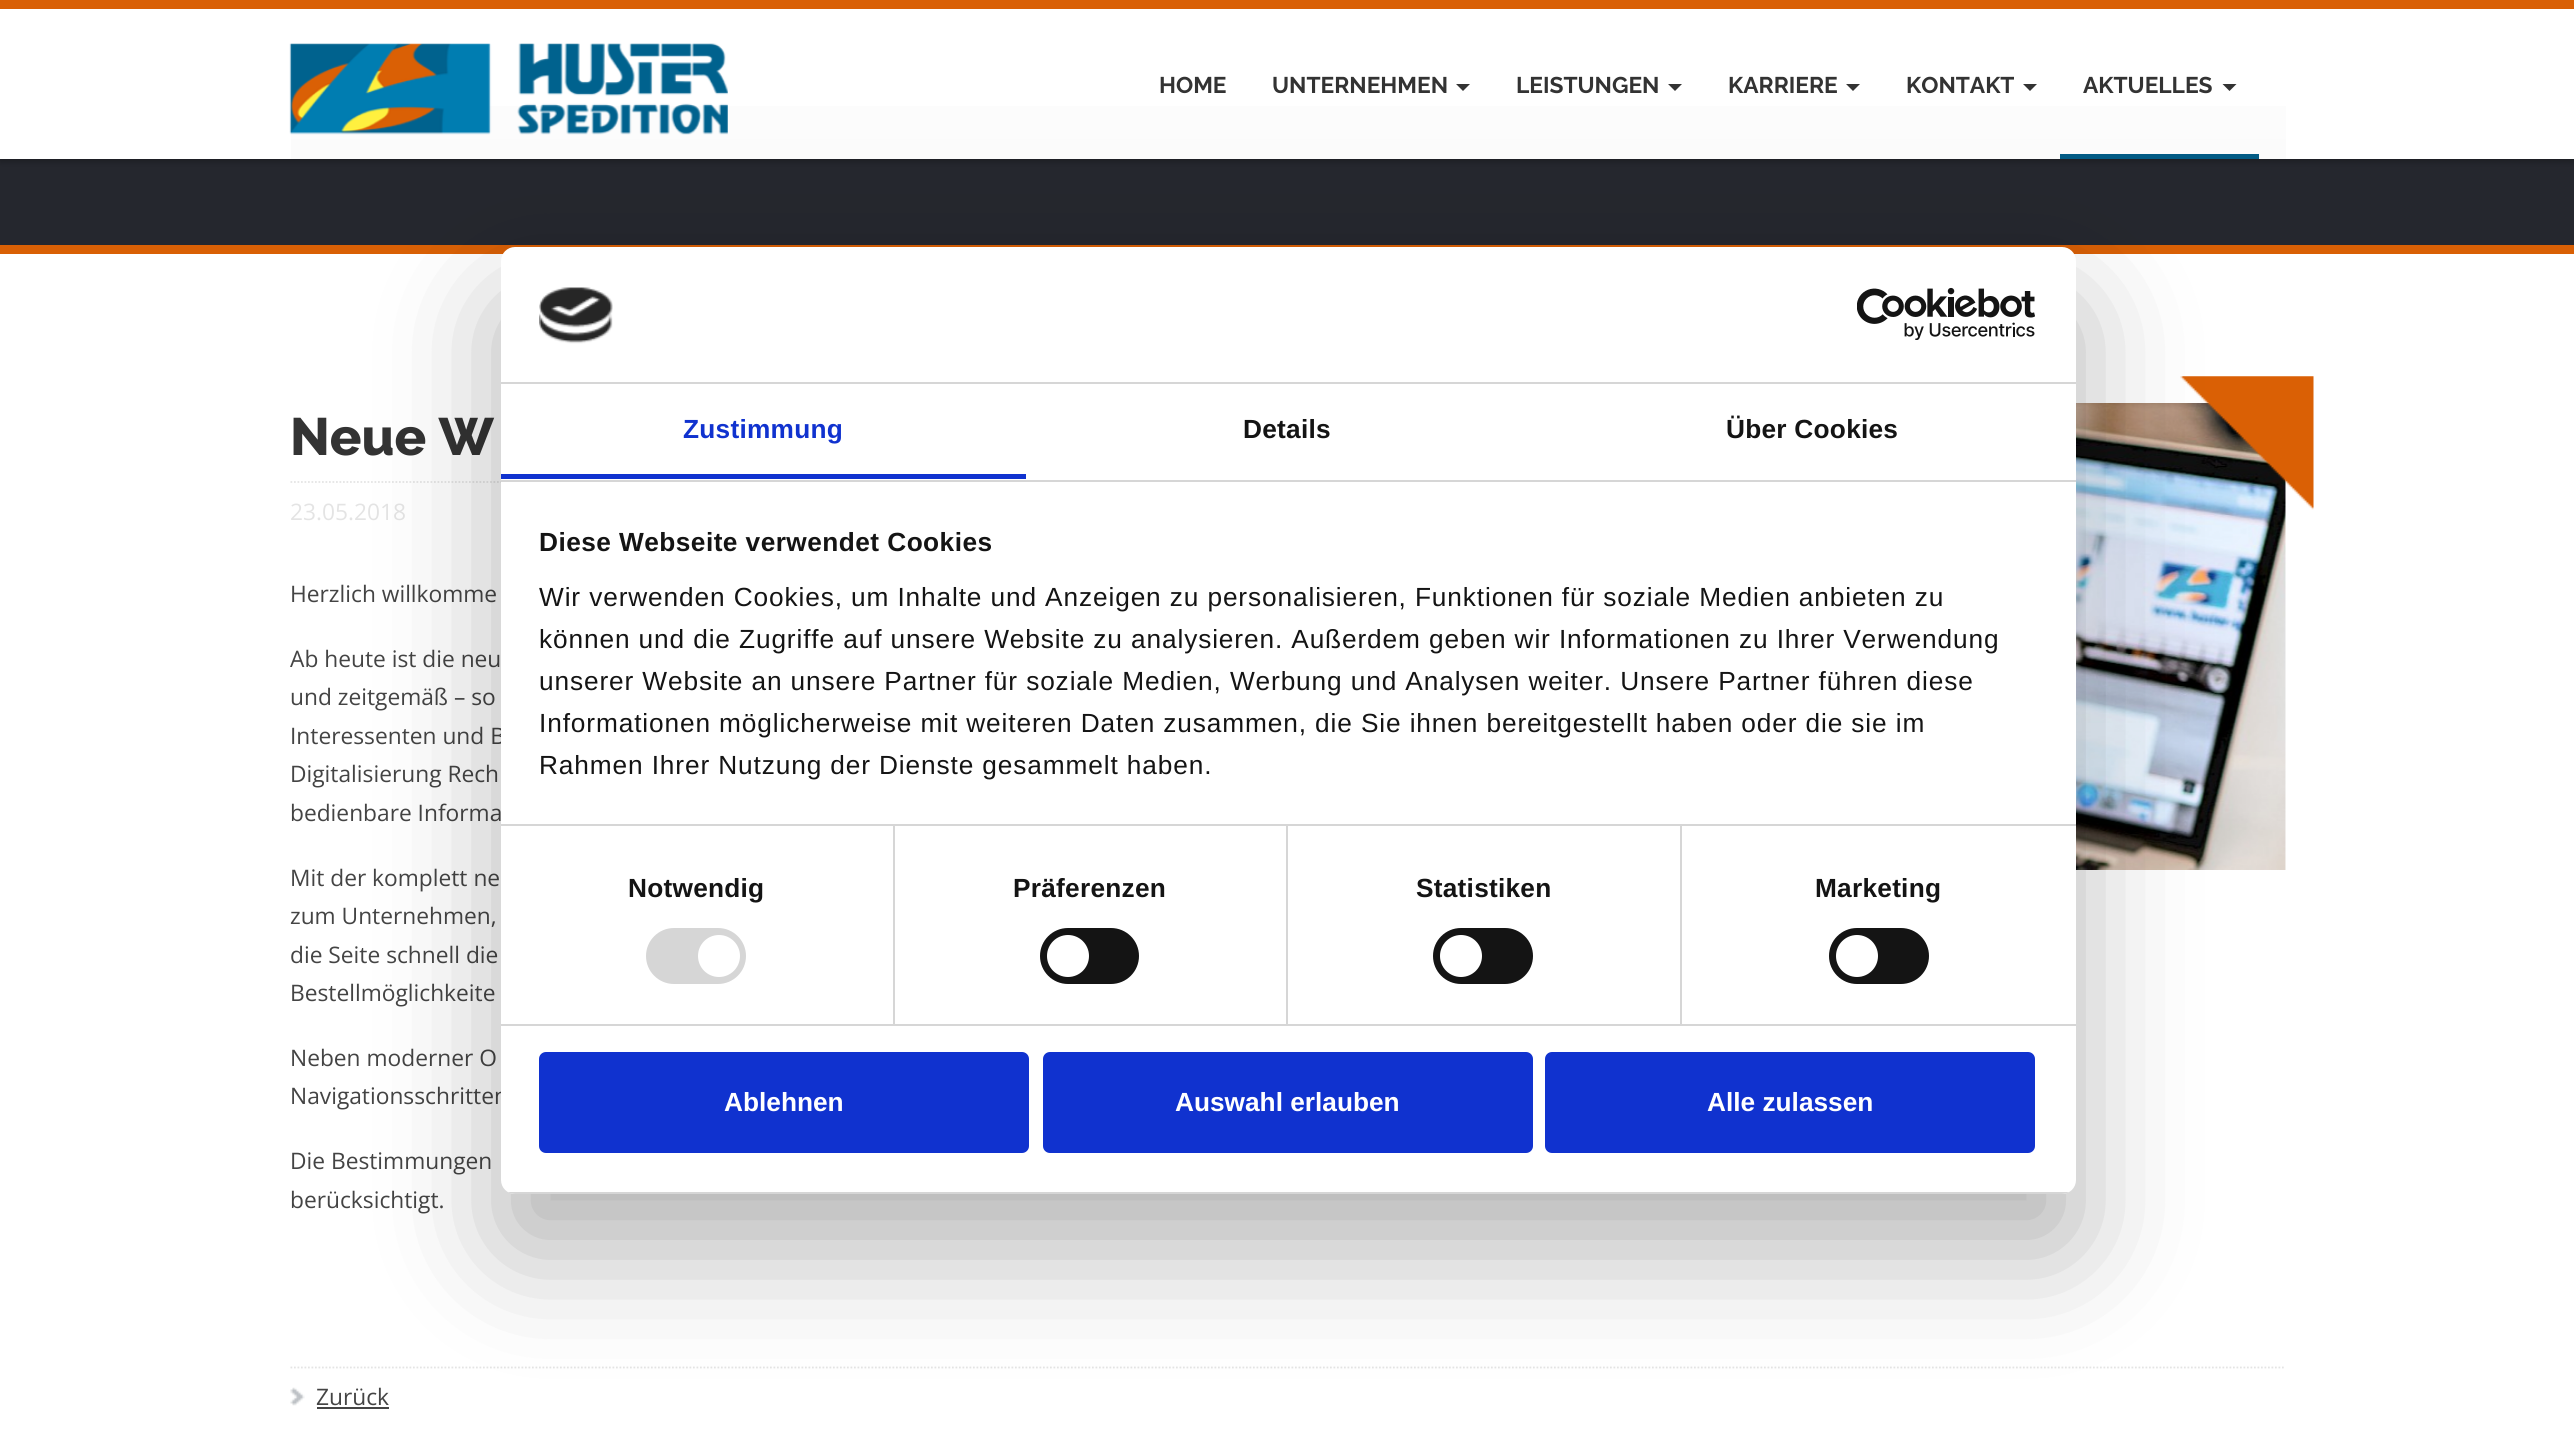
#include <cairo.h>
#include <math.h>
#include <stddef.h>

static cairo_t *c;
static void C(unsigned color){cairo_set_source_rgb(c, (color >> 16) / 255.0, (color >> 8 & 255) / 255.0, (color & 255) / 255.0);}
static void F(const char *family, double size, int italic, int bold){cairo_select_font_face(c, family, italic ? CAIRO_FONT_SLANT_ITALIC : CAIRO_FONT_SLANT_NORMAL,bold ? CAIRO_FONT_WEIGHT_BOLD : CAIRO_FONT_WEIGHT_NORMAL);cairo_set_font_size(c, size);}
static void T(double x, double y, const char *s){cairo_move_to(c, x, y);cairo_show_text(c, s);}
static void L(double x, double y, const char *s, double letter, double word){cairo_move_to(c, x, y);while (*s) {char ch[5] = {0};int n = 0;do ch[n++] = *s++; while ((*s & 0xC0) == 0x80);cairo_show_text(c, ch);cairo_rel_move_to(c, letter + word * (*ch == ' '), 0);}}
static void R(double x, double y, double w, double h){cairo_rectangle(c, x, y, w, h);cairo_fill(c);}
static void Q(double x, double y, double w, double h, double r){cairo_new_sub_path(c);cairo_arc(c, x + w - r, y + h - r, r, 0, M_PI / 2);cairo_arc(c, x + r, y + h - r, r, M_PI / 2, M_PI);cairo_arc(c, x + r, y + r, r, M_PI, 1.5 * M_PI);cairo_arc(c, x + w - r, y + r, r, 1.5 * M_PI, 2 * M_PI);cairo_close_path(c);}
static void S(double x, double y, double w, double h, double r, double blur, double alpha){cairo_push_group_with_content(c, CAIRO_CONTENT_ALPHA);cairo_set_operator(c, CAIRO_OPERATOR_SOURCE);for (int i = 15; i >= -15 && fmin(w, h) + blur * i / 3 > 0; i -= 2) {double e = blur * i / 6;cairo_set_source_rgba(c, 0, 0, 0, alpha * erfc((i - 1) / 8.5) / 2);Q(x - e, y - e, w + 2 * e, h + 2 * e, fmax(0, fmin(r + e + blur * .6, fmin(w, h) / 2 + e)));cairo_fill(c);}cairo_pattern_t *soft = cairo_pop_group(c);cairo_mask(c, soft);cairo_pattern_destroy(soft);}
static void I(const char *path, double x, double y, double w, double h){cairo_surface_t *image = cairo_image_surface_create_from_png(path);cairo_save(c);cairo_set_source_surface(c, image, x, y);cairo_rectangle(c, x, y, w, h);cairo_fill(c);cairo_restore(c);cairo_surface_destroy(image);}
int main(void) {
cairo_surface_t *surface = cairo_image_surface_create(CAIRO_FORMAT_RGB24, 2574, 1441);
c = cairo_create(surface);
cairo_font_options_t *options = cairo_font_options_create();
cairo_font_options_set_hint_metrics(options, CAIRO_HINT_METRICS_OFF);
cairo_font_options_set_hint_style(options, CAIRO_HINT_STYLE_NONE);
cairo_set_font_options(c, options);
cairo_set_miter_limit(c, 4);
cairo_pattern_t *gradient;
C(0xffffff);
cairo_paint(c);
C(0x25272e);
R(0,159,2574,86);
C(0x000000);
S(0,2,2574,159,0,3.5,.3);
C(0xffffff);
R(0,9,2574,150);
C(0xd96005);
R(0,0,2574,9);
gradient = cairo_pattern_create_linear(1288,17,1288,159);
cairo_pattern_add_color_stop_rgba(gradient,0,1,1,1,1);
cairo_pattern_add_color_stop_rgba(gradient,1,0.984,0.984,0.984,1);
cairo_set_source(c,gradient);
cairo_pattern_destroy(gradient);
R(291,106,1995,53);
I("1.png",289,43,439,92);
F("Raleway",22.75,0,1);
C(0x333333);
T(1159,93,"HOME");
T(1272,93,"UNTERNEHMEN");
cairo_new_path(c);
cairo_move_to(c,1456,84);
cairo_line_to(c,1470,84);
cairo_line_to(c,1463,91);
cairo_close_path(c);
cairo_fill(c);
T(1516,93,"LEISTUNGEN");
cairo_new_path(c);
cairo_move_to(c,1668,84);
cairo_line_to(c,1682,84);
cairo_line_to(c,1675,91);
cairo_close_path(c);
cairo_fill(c);
T(1728,93,"KARRIERE");
cairo_new_path(c);
cairo_move_to(c,1846,84);
cairo_line_to(c,1860,84);
cairo_line_to(c,1853,91);
cairo_close_path(c);
cairo_fill(c);
T(1906,93,"KONTAKT");
cairo_new_path(c);
cairo_move_to(c,2023,84);
cairo_line_to(c,2037,84);
cairo_line_to(c,2030,91);
cairo_close_path(c);
cairo_fill(c);
C(0x025b85);
R(2060,154,199,5);
C(0x333333);
T(2083,93,"AKTUELLES");
cairo_new_path(c);
cairo_move_to(c,2222.5,84);
cairo_line_to(c,2236.5,84);
cairo_line_to(c,2229.5,91);
cairo_close_path(c);
cairo_fill(c);
C(0xd96005);
R(0,245,2574,9);
cairo_new_path(c);
cairo_move_to(c,290.5,482);
cairo_line_to(c,1431.5,482);
C(0xe4e4e4);
cairo_set_line_width(c,1.8);
cairo_set_dash(c,(double[]){1.75,1.75},2,0);
cairo_stroke(c);
F("Raleway ExtraBold",52.5,0,0);
C(0x333333);
T(290,455,"Neue W");
F("Open Sans",22.75,0,0);
C(0xe4e4e4);
T(290,520,"23.05.2018");
C(0x444444);
T(290,602,"Herzlich willkomme");
T(290,667,"Ab heute ist die neu");
T(290,705,"und zeitgemäß – so");
T(290,744,"Interessenten und B");
T(290,782,"Digitalisierung Rech");
T(290,821,"bedienbare Informa");
T(290,886,"Mit der komplett ne");
T(290,924,"zum Unternehmen,");
T(290,963,"die Seite schnell die");
T(290,1001,"Bestellmöglichkeite");
T(290,1066,"Neben moderner O");
T(290,1104,"Navigationsschritten");
T(290,1169,"Die Bestimmungen");
T(290,1208,"berücksichtigt.");
I("3.png",2076,403,210,467);
I("2.png",2180,376,134,134);
I("4.png",290,1387,15,19);
cairo_new_path(c);
cairo_move_to(c,290.5,1367.5);
cairo_line_to(c,2285.5,1367.5);
C(0xe4e4e4);
cairo_stroke(c);
C(0x444444);
T(316,1405,"Zurück");
R(317,1407,72,2);
C(0x000000);
S(501,303,1575,947,14,59.5,.3);
C(0xffffff);
Q(501,247,1575,947,14);
cairo_fill(c);
C(0xd6d6d6);
R(501,382,1575,2);
I("5.png",539,287,74,57);
I("6.png",1857,287,178,53);
R(501,480,1575,2);
C(0x1032cf);
R(501,474,525,5);
F("Liberation Sans",26.25,0,1);
L(683,438,"Zustimmung",.25,0);
C(0x141414);
L(1243,438,"Details",.25,0);
L(1726,438,"Über Cookies",.25,0);
C(0xd6d6d6);
R(501,824,1575,2);
C(0x141414);
L(539,551,"Diese Webseite verwendet Cookies",.45,0);
F("Liberation Sans",26.25,0,0);
L(539,606,"Wir verwenden Cookies, um Inhalte und Anzeigen zu personalisieren, Funktionen für soziale Medien anbieten zu",.88,0);
L(539,648,"können und die Zugriffe auf unsere Website zu analysieren. Außerdem geben wir Informationen zu Ihrer Verwendung",.88,0);
L(539,690,"unserer Website an unsere Partner für soziale Medien, Werbung und Analysen weiter. Unsere Partner führen diese",.88,0);
L(539,732,"Informationen möglicherweise mit weiteren Daten zusammen, die Sie ihnen bereitgestellt haben oder die sie im",.88,0);
L(539,774,"Rahmen Ihrer Nutzung der Dienste gesammelt haben.",.88,0);
C(0xd6d6d6);
R(501,1024,1575,2);
R(893,826,2,198);
F("Liberation Sans",26.25,0,1);
C(0x141414);
L(628,897,"Notwendig",.25,0);
C(0xd6d6d6);
Q(646,928,100,56,28);
cairo_fill(c);
C(0xffffff);
cairo_arc(c,719,956,21,0,2 * M_PI);
cairo_fill(c);
C(0xd6d6d6);
R(1286,826,2,198);
C(0x141414);
L(1013,897,"Präferenzen",.25,0);
Q(1040,928,99,56,28);
cairo_fill(c);
C(0xffffff);
cairo_arc(c,1068,956,21,0,2 * M_PI);
cairo_fill(c);
C(0xd6d6d6);
R(1680,826,2,198);
C(0x141414);
L(1416,897,"Statistiken",.25,0);
Q(1433,928,100,56,28);
cairo_fill(c);
C(0xffffff);
cairo_arc(c,1461,956,21,0,2 * M_PI);
cairo_fill(c);
C(0x141414);
L(1815,897,"Marketing",.25,0);
Q(1829,928,100,56,28);
cairo_fill(c);
C(0xffffff);
cairo_arc(c,1857,956,21,0,2 * M_PI);
cairo_fill(c);
cairo_save(c);
Q(501,247,1575,947,14);
cairo_clip(c);
C(0xd6d6d6);
R(501,1192,1575,2);
cairo_restore(c);
C(0x1032cf);
Q(541,1054,486,97,5);
cairo_fill_preserve(c);
cairo_set_line_width(c,4);
cairo_set_dash(c,NULL,0,0);
cairo_stroke(c);
C(0xffffff);
T(724,1111,"Ablehnen");
C(0x1032cf);
Q(1045,1054,486,97,5);
cairo_fill_preserve(c);
cairo_stroke(c);
C(0xffffff);
T(1175,1111,"Auswahl erlauben");
C(0x1032cf);
Q(1547,1054,486,97,5);
cairo_fill_preserve(c);
cairo_stroke(c);
C(0xffffff);
T(1707,1111,"Alle zulassen");
cairo_surface_write_to_png(surface, "o.png");
cairo_font_options_destroy(options);
cairo_destroy(c);
cairo_surface_destroy(surface);
return 0;
}
